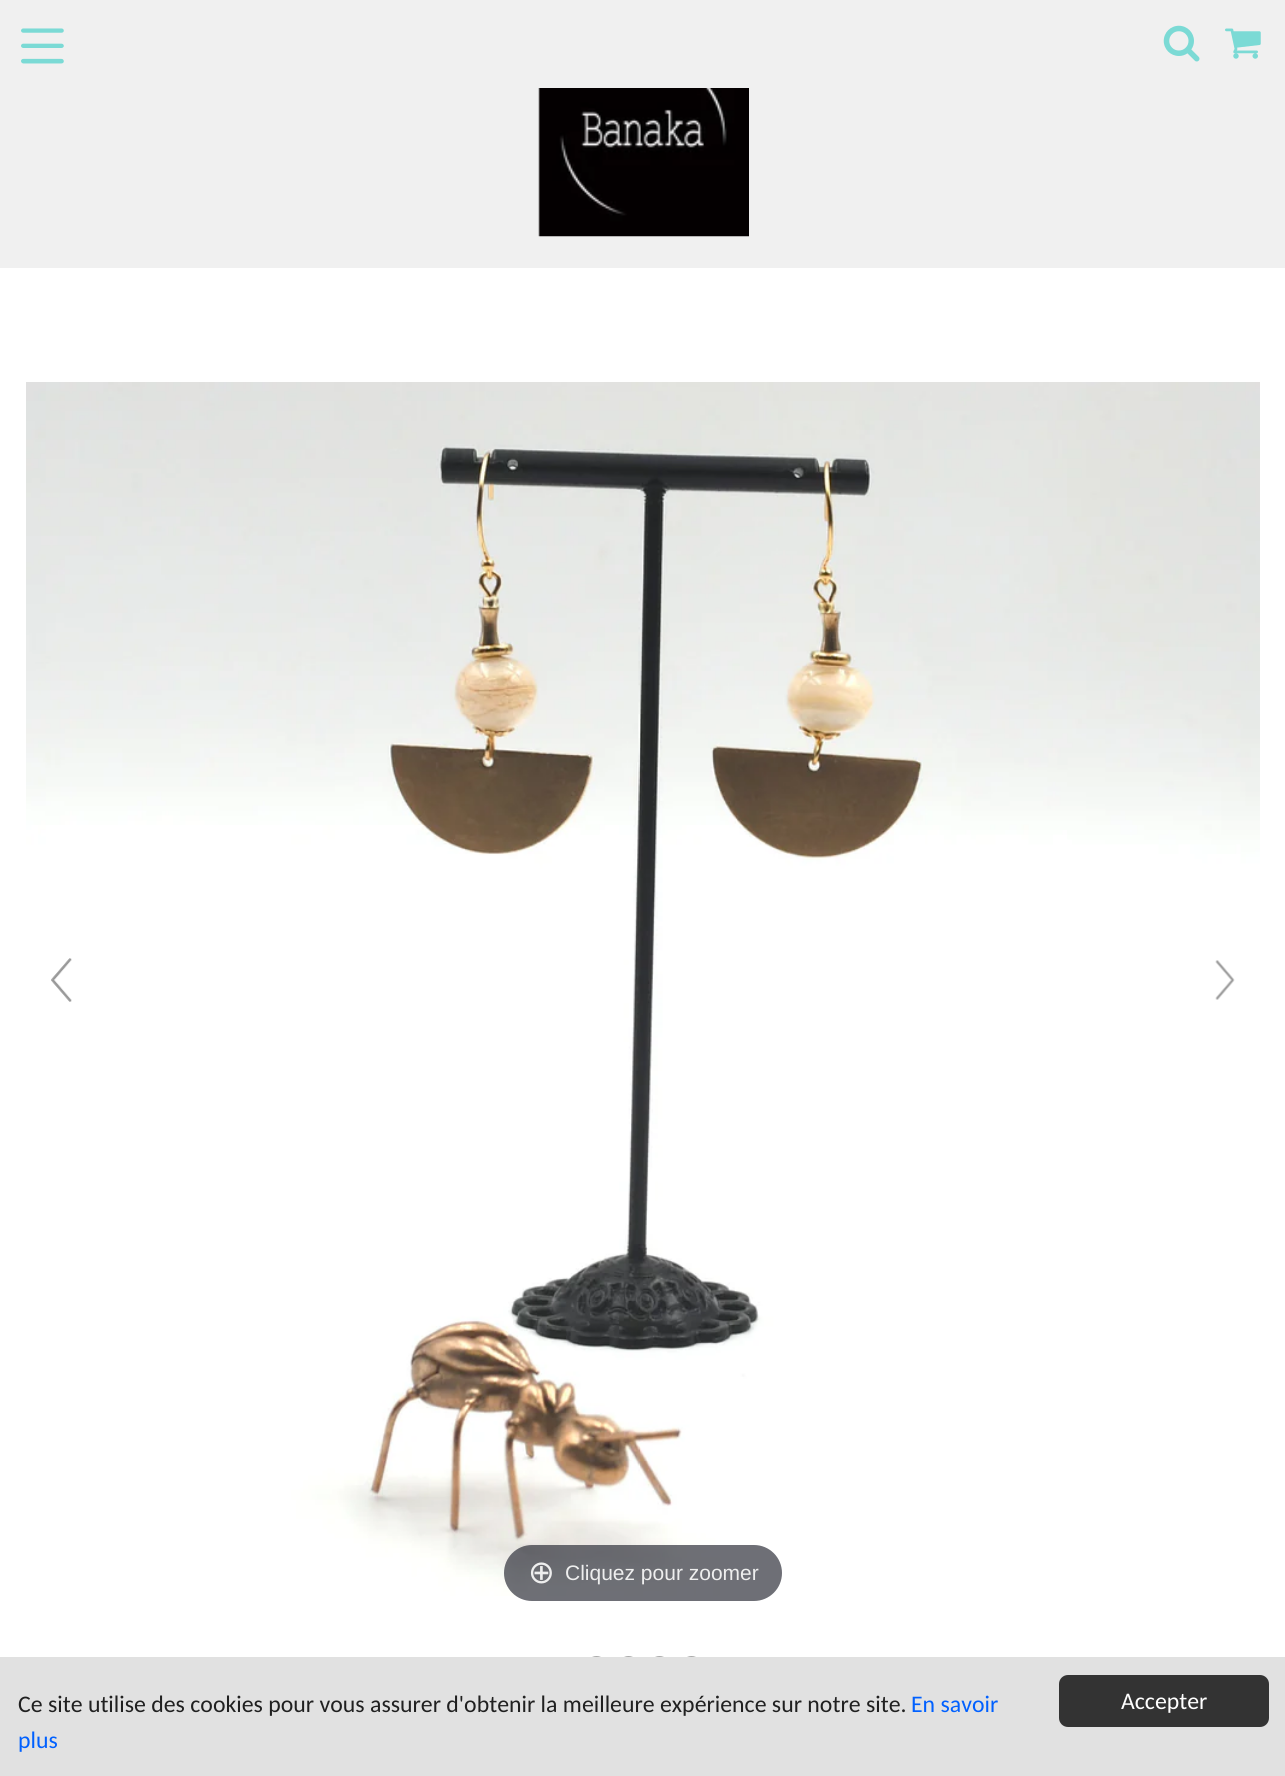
#include <cairo.h>
#include <math.h>
#include <stddef.h>

static cairo_t *c;
static void C(unsigned color){cairo_set_source_rgb(c, (color >> 16) / 255.0, (color >> 8 & 255) / 255.0, (color & 255) / 255.0);}
static void F(const char *family, double size, int italic, int bold){cairo_select_font_face(c, family, italic ? CAIRO_FONT_SLANT_ITALIC : CAIRO_FONT_SLANT_NORMAL,bold ? CAIRO_FONT_WEIGHT_BOLD : CAIRO_FONT_WEIGHT_NORMAL);cairo_set_font_size(c, size);}
static void T(double x, double y, const char *s){cairo_move_to(c, x, y);cairo_show_text(c, s);}
static void R(double x, double y, double w, double h){cairo_rectangle(c, x, y, w, h);cairo_fill(c);}
static void Q(double x, double y, double w, double h, double r){cairo_new_sub_path(c);cairo_arc(c, x + w - r, y + h - r, r, 0, M_PI / 2);cairo_arc(c, x + r, y + h - r, r, M_PI / 2, M_PI);cairo_arc(c, x + r, y + r, r, M_PI, 1.5 * M_PI);cairo_arc(c, x + w - r, y + r, r, 1.5 * M_PI, 2 * M_PI);cairo_close_path(c);}
static void I(const char *path, double x, double y, double w, double h){cairo_surface_t *image = cairo_image_surface_create_from_png(path);cairo_save(c);cairo_set_source_surface(c, image, x, y);cairo_rectangle(c, x, y, w, h);cairo_fill(c);cairo_restore(c);cairo_surface_destroy(image);}
int main(void) {
cairo_surface_t *surface = cairo_image_surface_create(CAIRO_FORMAT_RGB24, 1285, 1776);
c = cairo_create(surface);
cairo_font_options_t *options = cairo_font_options_create();
cairo_font_options_set_hint_metrics(options, CAIRO_HINT_METRICS_OFF);
cairo_font_options_set_hint_style(options, CAIRO_HINT_STYLE_NONE);
cairo_set_font_options(c, options);
cairo_set_miter_limit(c, 4);
C(0xffffff);
cairo_paint(c);
C(0xf0f0f0);
R(0,0,1285,268);
I("1.png",21,28,43,36);
I("2.png",1163,25,37,37);
I("3.png",1225,28,36,31);
I("4.png",538,88,211,149);
I("7.png",26,382,1234,1214);
I("5.png",51,958,21,44);
I("6.png",1215,960,20,40);
cairo_set_source_rgba(c,0.192,0.2,0.239,0.7);
Q(504,1545,278,56,28);
cairo_fill(c);
F("DejaVu Sans",32,0,0);
C(0xeeeeee);
T(528,1583,"⊕");
F("Liberation Sans",21,0,0);
T(565,1580,"Cliquez pour zoomer");
C(0xaaaaaa);
cairo_new_path(c);
cairo_arc(c,596.5,1666.5,10.5,0,2 * M_PI);
cairo_fill(c);
cairo_arc(c,628.5,1666.5,10.5,0,2 * M_PI);
cairo_fill(c);
cairo_arc(c,659.5,1666.5,10.5,0,2 * M_PI);
cairo_fill(c);
cairo_arc(c,691.5,1666.5,10.5,0,2 * M_PI);
cairo_fill(c);
C(0xe1e1e1);
R(0,1657,1285,119);
F("Carlito",23.8,0,0);
C(0x202020);
T(18,1712,"Ce site utilise des cookies pour vous assurer d'obtenir la meilleure expérience sur notre site.");
C(0x0060ff);
T(911,1712,"En savoir");
T(18,1748,"plus");
C(0x333333);
Q(1059,1675,210,52,9);
cairo_fill(c);
C(0xffffff);
T(1121,1709,"Accepter");
cairo_surface_write_to_png(surface, "o.png");
cairo_font_options_destroy(options);
cairo_destroy(c);
cairo_surface_destroy(surface);
return 0;
}
